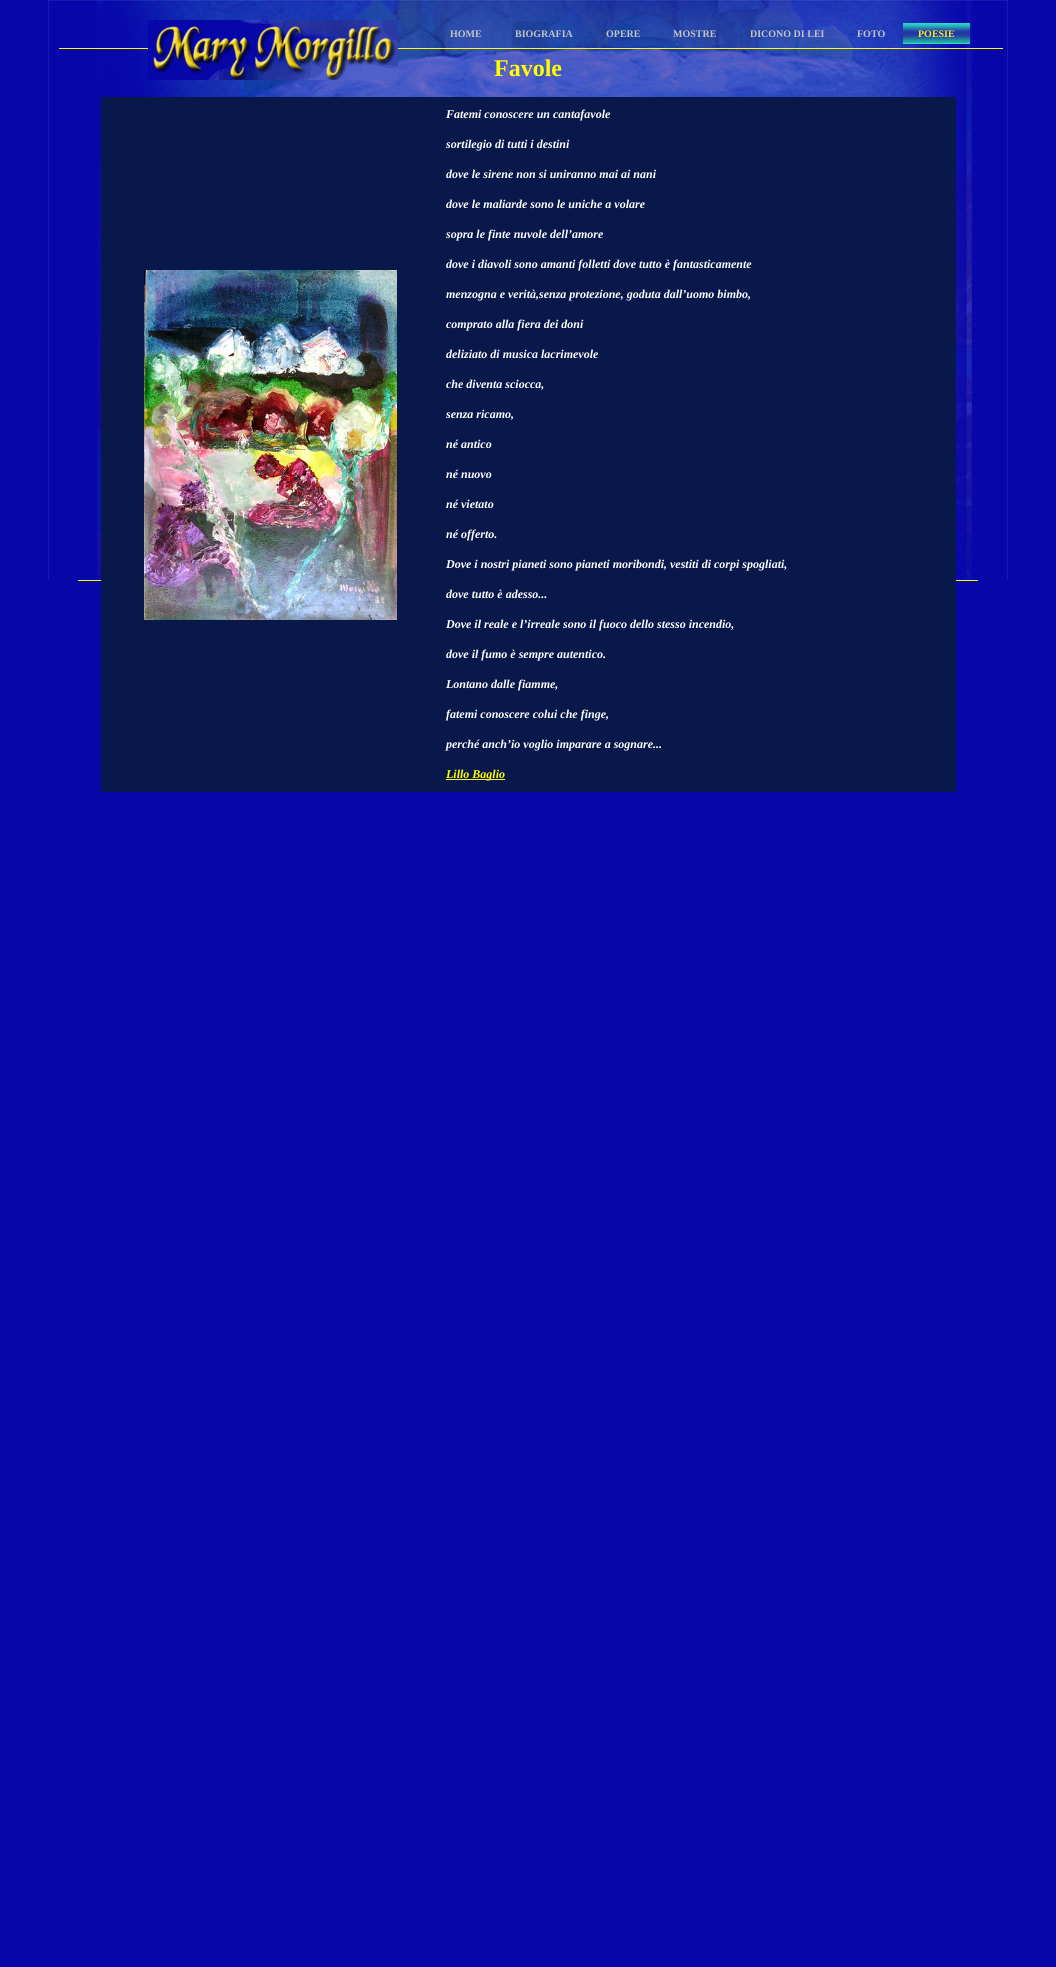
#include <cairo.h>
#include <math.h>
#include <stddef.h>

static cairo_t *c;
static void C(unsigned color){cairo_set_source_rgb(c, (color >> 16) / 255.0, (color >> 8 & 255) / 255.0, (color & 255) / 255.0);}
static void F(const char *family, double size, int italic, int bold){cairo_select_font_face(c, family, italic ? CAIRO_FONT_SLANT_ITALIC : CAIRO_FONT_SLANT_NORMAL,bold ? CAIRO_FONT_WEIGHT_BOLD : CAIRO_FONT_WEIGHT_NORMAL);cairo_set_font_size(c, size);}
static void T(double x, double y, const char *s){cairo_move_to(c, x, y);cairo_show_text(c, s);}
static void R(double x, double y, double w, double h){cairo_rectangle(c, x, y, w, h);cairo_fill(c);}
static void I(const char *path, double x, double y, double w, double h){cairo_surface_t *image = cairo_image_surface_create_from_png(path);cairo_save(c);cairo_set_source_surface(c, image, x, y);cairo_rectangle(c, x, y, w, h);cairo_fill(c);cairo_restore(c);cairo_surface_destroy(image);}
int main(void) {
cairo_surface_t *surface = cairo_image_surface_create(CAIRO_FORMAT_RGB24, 1056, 1967);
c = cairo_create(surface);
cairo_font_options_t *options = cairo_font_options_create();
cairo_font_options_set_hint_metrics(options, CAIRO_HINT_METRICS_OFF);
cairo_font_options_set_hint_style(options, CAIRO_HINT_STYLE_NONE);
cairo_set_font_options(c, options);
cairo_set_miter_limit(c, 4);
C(0x0706a9);
cairo_paint(c);
I("1.png",48,0,960,580);
C(0xffff00);
R(59,48,944,1);
I("2.png",148,20,250,60);
F("Liberation Serif",10,0,1);
C(0xc4c4c4);
T(450,37,"HOME");
T(515,37,"BIOGRAFIA");
T(606,37,"OPERE");
T(673,37,"MOSTRE");
T(750,37,"DICONO DI LEI");
T(857,37,"FOTO");
I("3.png",903,23,67,21);
C(0xf0eb28);
T(918,37,"POESIE");
F("Liberation Serif",24,0,1);
C(0xffff00);
T(494,76,"Favole");
R(78,580,900,1);
C(0x08184b);
R(101,97,855,695);
I("4.png",144,270,253,350);
F("Liberation Serif",12,1,1);
C(0xffffff);
T(446,118,"Fatemi conoscere un cantafavole");
T(446,148,"sortilegio di tutti i destini");
T(446,178,"dove le sirene non si uniranno mai ai nani");
T(446,208,"dove le maliarde sono le uniche a volare");
T(446,238,"sopra le finte nuvole dell’amore");
T(446,268,"dove i diavoli sono amanti folletti dove tutto è fantasticamente");
T(446,298,"menzogna e verità,senza protezione, goduta dall’uomo bimbo,");
T(446,328,"comprato alla fiera dei doni");
T(446,358,"deliziato di musica lacrimevole");
T(446,388,"che diventa sciocca,");
T(446,418,"senza ricamo,");
T(446,448,"né antico");
T(446,478,"né nuovo");
T(446,508,"né vietato");
T(446,538,"né offerto.");
T(446,568,"Dove i nostri pianeti sono pianeti moribondi, vestiti di corpi spogliati,");
T(446,598,"dove tutto è adesso...");
T(446,628,"Dove il reale e l’irreale sono il fuoco dello stesso incendio,");
T(446,658,"dove il fumo è sempre autentico.");
T(446,688,"Lontano dalle fiamme,");
T(446,718,"fatemi conoscere colui che finge,");
T(446,748,"perché anch’io voglio imparare a sognare...");
C(0xffff00);
R(446,779,59,1);
T(446,778,"Lillo Baglio");
cairo_surface_write_to_png(surface, "o.png");
cairo_font_options_destroy(options);
cairo_destroy(c);
cairo_surface_destroy(surface);
return 0;
}
